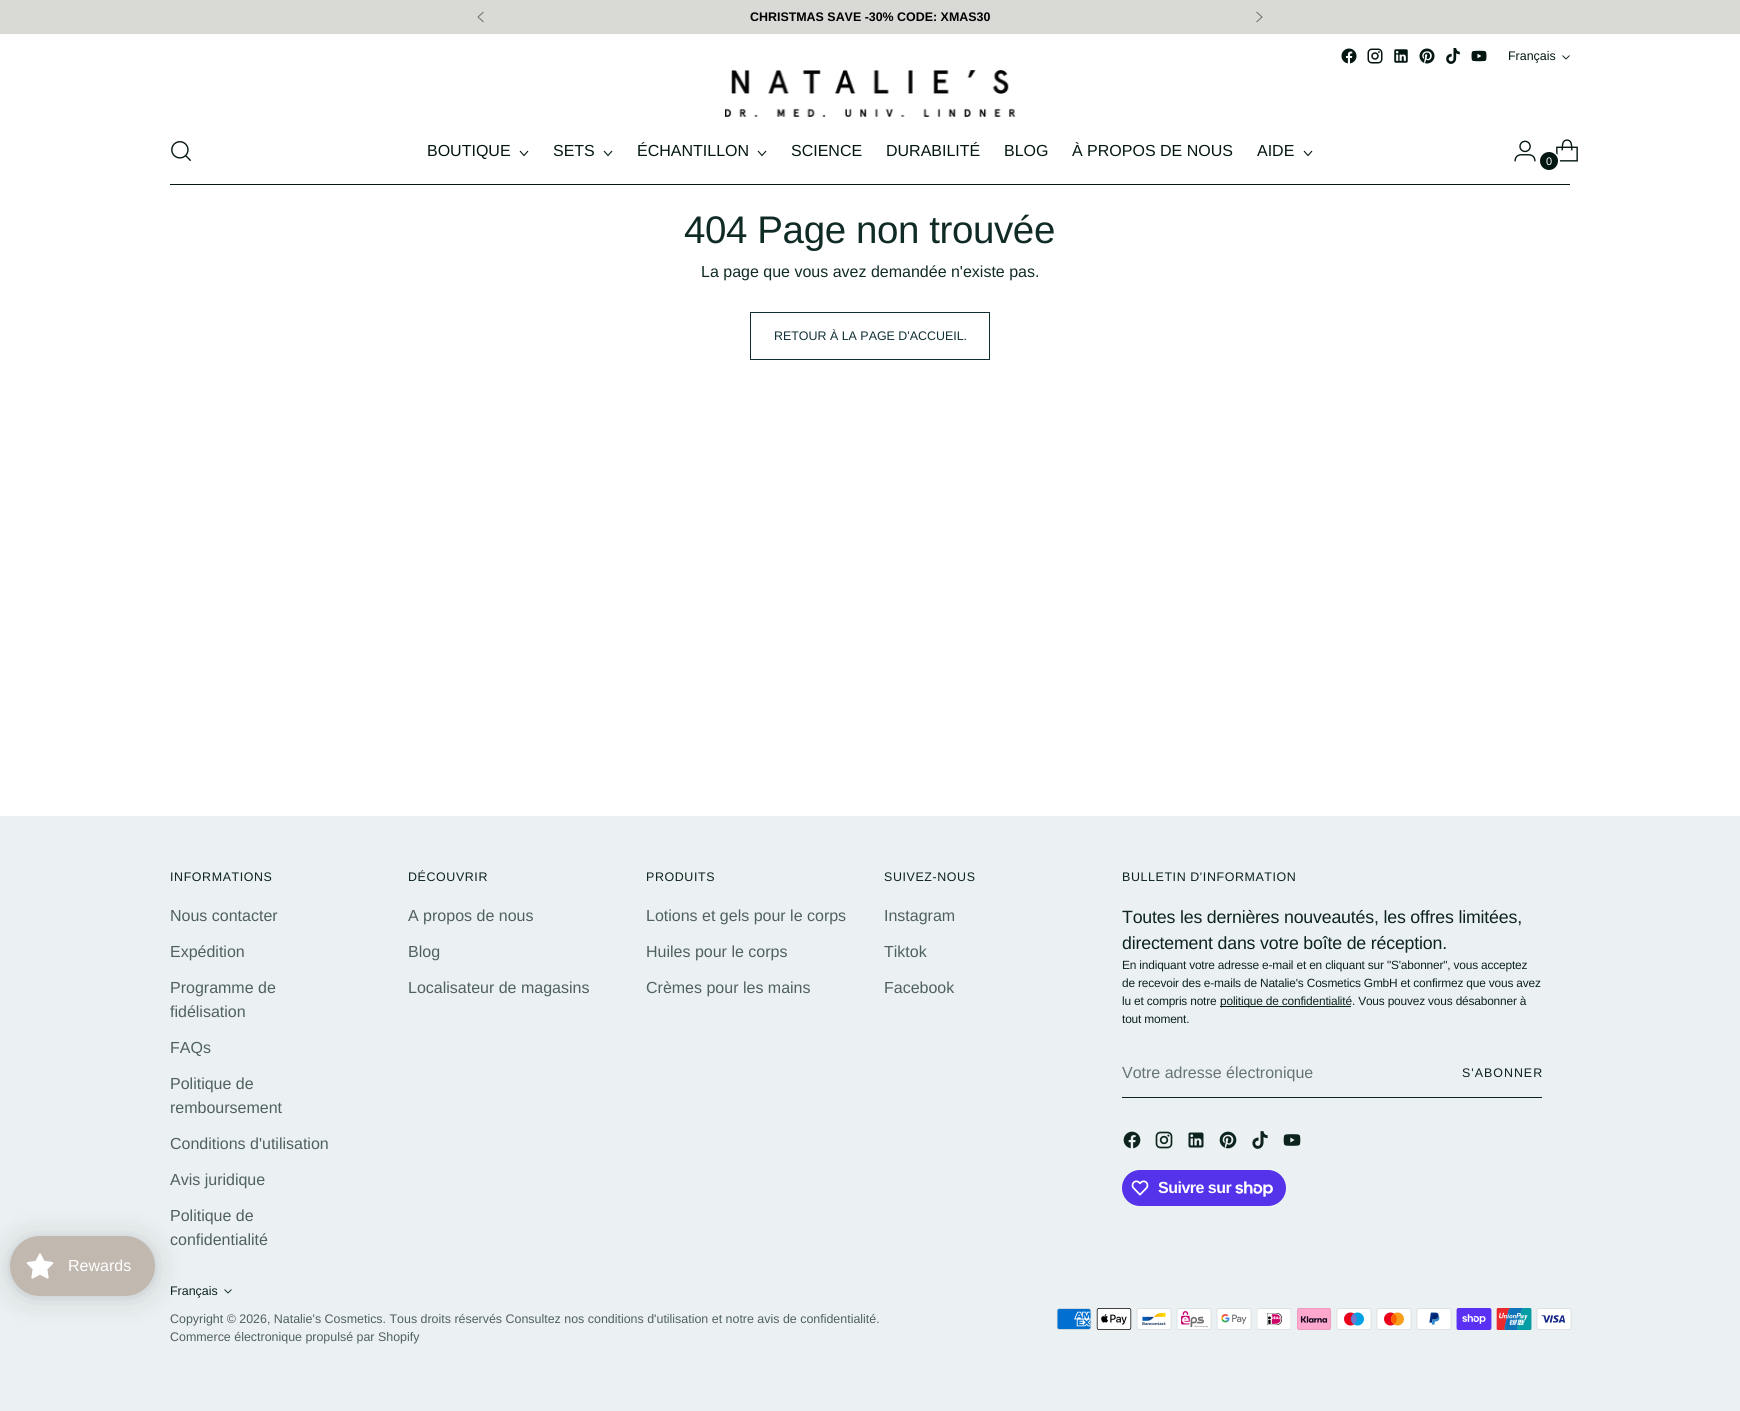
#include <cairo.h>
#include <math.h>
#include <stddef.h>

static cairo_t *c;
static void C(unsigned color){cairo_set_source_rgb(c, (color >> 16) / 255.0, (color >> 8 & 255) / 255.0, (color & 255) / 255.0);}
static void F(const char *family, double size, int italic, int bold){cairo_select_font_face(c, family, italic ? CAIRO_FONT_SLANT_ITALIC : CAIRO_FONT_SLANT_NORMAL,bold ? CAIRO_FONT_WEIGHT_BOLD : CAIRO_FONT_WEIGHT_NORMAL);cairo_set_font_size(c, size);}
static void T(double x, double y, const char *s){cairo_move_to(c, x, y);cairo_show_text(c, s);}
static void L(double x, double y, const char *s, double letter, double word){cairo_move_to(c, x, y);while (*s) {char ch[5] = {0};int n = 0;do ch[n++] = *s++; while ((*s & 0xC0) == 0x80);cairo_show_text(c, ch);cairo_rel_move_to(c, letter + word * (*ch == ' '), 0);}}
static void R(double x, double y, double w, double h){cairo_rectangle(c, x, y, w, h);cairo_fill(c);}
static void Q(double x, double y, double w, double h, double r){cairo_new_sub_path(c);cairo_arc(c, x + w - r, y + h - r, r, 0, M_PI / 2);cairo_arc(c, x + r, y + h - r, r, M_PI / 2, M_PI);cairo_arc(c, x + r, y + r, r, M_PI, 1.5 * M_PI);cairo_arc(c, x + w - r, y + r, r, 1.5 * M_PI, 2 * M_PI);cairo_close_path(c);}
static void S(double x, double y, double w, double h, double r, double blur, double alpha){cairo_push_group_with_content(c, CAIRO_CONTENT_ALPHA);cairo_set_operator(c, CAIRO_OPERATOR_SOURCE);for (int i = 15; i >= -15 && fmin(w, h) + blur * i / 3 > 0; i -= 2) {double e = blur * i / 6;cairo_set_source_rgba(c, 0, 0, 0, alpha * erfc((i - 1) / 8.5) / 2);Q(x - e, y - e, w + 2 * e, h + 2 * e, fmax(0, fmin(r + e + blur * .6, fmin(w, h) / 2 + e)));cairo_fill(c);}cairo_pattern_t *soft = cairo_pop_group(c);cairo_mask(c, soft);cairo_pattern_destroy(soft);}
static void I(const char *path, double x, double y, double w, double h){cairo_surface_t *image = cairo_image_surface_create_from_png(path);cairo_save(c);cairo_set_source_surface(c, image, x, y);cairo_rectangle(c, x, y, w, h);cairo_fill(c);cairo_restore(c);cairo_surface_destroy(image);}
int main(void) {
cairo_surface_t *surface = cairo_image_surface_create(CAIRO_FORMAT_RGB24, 1740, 1411);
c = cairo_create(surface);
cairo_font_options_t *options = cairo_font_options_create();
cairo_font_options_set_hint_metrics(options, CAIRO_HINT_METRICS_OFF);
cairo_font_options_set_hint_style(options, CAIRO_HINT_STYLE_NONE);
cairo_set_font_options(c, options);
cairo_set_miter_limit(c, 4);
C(0xffffff);
cairo_paint(c);
C(0xebf0f2);
R(0,816,1740,595);
C(0x000000);
S(10,1238,145,60,30,15,.15);
S(10,1237,145,60,30,3,.05);
C(0xc1b8af);
Q(10,1236,145,60,30);
cairo_fill(c);
I("1.png",26,1253,28,26);
F("Liberation Sans",16,0,0);
C(0xffffff);
T(68,1271,"Rewards");
C(0xd9d9d6);
R(0,0,1740,34);
cairo_new_path(c);
cairo_move_to(c,483.5,12);
cairo_line_to(c,478,17);
cairo_line_to(c,483.5,22);
C(0x6d6d6b);
cairo_set_line_width(c,1);
cairo_stroke(c);
cairo_new_path(c);
cairo_move_to(c,1256.5,22);
cairo_line_to(c,1262,17);
cairo_line_to(c,1256.5,12);
cairo_stroke(c);
F("Liberation Sans",12.43,0,1);
C(0x000000);
T(750,21,"CHRISTMAS SAVE -30% CODE: XMAS30");
C(0x031612);
R(170,184,1400,1);
I("2.png",1341,48,16,16);
I("3.png",1367,48,16,16);
I("4.png",1394,49,14,14);
I("5.png",1419,48,16,16);
I("6.png",1446,48,14,16);
I("7.png",1471,50,16,12);
F("Liberation Sans",12.43,0,0);
T(1508,60,"Français");
cairo_new_path(c);
cairo_move_to(c,1562.5,55.5);
cairo_line_to(c,1566,59);
cairo_line_to(c,1569.5,55.5);
cairo_set_line_width(c,.9);
cairo_stroke(c);
I("8.png",725,70,290,47);
I("9.png",171,141,21,21);
F("Liberation Sans",16,0,0);
T(427,156,"BOUTIQUE");
cairo_new_path(c);
cairo_move_to(c,520,151);
cairo_line_to(c,524,155.5);
cairo_line_to(c,528,151);
cairo_set_line_width(c,1.1);
cairo_stroke(c);
T(553,156,"SETS");
cairo_new_path(c);
cairo_move_to(c,604,151);
cairo_line_to(c,608,155.5);
cairo_line_to(c,612,151);
cairo_stroke(c);
T(637,156,"ÉCHANTILLON");
cairo_new_path(c);
cairo_move_to(c,758,151);
cairo_line_to(c,762,155.5);
cairo_line_to(c,766,151);
cairo_stroke(c);
T(791,156,"SCIENCE");
T(886,156,"DURABILITÉ");
T(1004,156,"BLOG");
T(1072,156,"À PROPOS DE NOUS");
T(1257,156,"AIDE");
cairo_new_path(c);
cairo_move_to(c,1304,151);
cairo_line_to(c,1308,155.5);
cairo_line_to(c,1312,151);
cairo_stroke(c);
I("10.png",1514,140,22,22);
I("11.png",1556,139,22,23);
cairo_arc(c,1549.5,161.5,9.5,0,2 * M_PI);
C(0xffffff);
cairo_set_line_width(c,2);
cairo_stroke(c);
C(0x031612);
cairo_arc(c,1549,161,9,0,2 * M_PI);
cairo_fill(c);
F("Liberation Sans",11,0,0);
C(0xffffff);
T(1546,165,"0");
F("Liberation Sans",38.5,0,0);
C(0x102b26);
L(684,243,"404 Page non trouvée",-.4,0);
F("Liberation Sans",16,0,0);
T(701,277,"La page que vous avez demandée n'existe pas.");
cairo_rectangle(c,750.5,312.5,239,47);
C(0x113035);
cairo_set_line_width(c,1);
cairo_stroke(c);
F("Liberation Sans",12.43,0,0);
T(774,340,"RETOUR À LA PAGE D'ACCUEIL.");
C(0x0c231e);
L(170,881,"INFORMATIONS",.6,0);
F("Liberation Sans",16,0,0);
C(0x4f615e);
T(170,921,"Nous contacter");
T(170,957,"Expédition");
T(170,993,"Programme de");
T(170,1017,"fidélisation");
T(170,1053,"FAQs");
T(170,1089,"Politique de");
T(170,1113,"remboursement");
T(170,1149,"Conditions d'utilisation");
T(170,1185,"Avis juridique");
T(170,1221,"Politique de");
T(170,1245,"confidentialité");
F("Liberation Sans",12.43,0,0);
C(0x0c231e);
L(408,881,"DÉCOUVRIR",.6,0);
F("Liberation Sans",16,0,0);
C(0x4f615e);
T(408,921,"A propos de nous");
T(408,957,"Blog");
T(408,993,"Localisateur de magasins");
F("Liberation Sans",12.43,0,0);
C(0x0c231e);
L(646,881,"PRODUITS",.6,0);
F("Liberation Sans",16,0,0);
C(0x4f615e);
T(646,921,"Lotions et gels pour le corps");
T(646,957,"Huiles pour le corps");
T(646,993,"Crèmes pour les mains");
F("Liberation Sans",12.43,0,0);
C(0x0c231e);
L(884,881,"SUIVEZ-NOUS",.6,0);
F("Liberation Sans",16,0,0);
C(0x4f615e);
T(884,921,"Instagram");
T(884,957,"Tiktok");
T(884,993,"Facebook");
F("Liberation Sans",12.43,0,0);
C(0x0c231e);
L(1122,881,"BULLETIN D'INFORMATION",.6,0);
F("Liberation Sans",17.75,0,0);
L(1122,923,"Toutes les dernières nouveautés, les offres limitées,",-.18,0);
L(1122,949,"directement dans votre boîte de réception.",-.18,0);
F("Liberation Sans",11.9,0,0);
L(1122,969,"En indiquant votre adresse e-mail et en cliquant sur \"S'abonner\", vous acceptez",-.18,0);
L(1122,987,"de recevoir des e-mails de Natalie's Cosmetics GmbH et confirmez que vous avez",-.18,0);
L(1122,1005,"lu et compris notre",-.18,0);
R(1220,1006,131,1);
L(1220,1005,"politique de confidentialité. Vous pouvez vous désabonner à",-.18,0);
L(1122,1023,"tout moment.",-.18,0);
R(1122,1097,420,1);
F("Liberation Sans",16,0,0);
C(0x657573);
T(1122,1078,"Votre adresse électronique");
F("Liberation Sans",12.43,0,0);
C(0x0c231e);
L(1462,1077,"S'ABONNER",1,0);
I("12.png",1123,1131,18,18);
I("13.png",1155,1131,18,18);
I("14.png",1188,1132,16,16);
I("15.png",1219,1131,18,18);
I("16.png",1252,1131,16,18);
I("17.png",1283,1134,18,12);
C(0x5433eb);
Q(1122,1170,164,36,18);
cairo_fill(c);
I("18.png",1131,1180,18,16);
F("Liberation Sans",16,0,1);
C(0xffffff);
L(1158,1193,"Suivre sur",-.5,0);
I("19.png",1235,1181,38,16);
F("Liberation Sans",12.43,0,0);
C(0x0c231e);
T(170,1295,"Français");
cairo_new_path(c);
cairo_move_to(c,224.5,1289.5);
cairo_line_to(c,228,1293);
cairo_line_to(c,231.5,1289.5);
cairo_set_line_width(c,.9);
cairo_stroke(c);
C(0x4f615e);
T(170,1323,"Copyright © 2026, Natalie's Cosmetics. Tous droits réservés Consultez nos conditions d'utilisation et notre avis de confidentialité.");
T(170,1341,"Commerce électronique propulsé par Shopify");
I("20.png",1056,1308,36,22);
I("21.png",1096,1308,36,22);
I("22.png",1136,1308,36,22);
I("23.png",1176,1308,36,22);
I("24.png",1216,1308,36,22);
I("25.png",1257,1308,34,22);
I("26.png",1297,1308,34,22);
I("27.png",1336,1308,36,22);
I("28.png",1376,1308,36,22);
I("29.png",1416,1308,36,22);
I("30.png",1456,1308,36,22);
I("31.png",1496,1308,36,22);
I("32.png",1536,1308,36,22);
cairo_surface_write_to_png(surface, "o.png");
cairo_font_options_destroy(options);
cairo_destroy(c);
cairo_surface_destroy(surface);
return 0;
}
